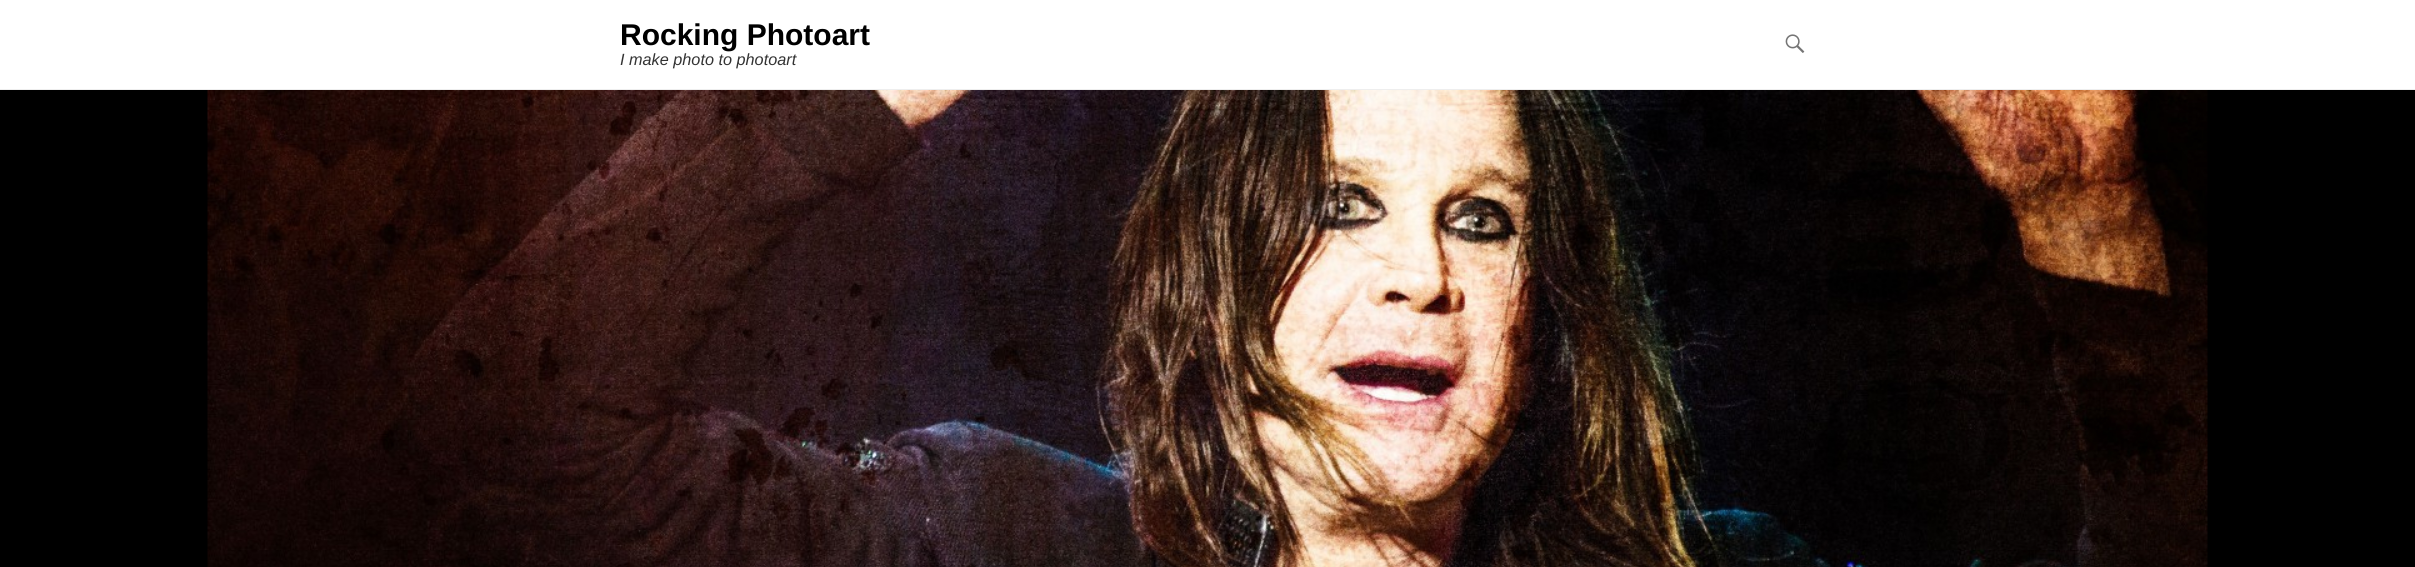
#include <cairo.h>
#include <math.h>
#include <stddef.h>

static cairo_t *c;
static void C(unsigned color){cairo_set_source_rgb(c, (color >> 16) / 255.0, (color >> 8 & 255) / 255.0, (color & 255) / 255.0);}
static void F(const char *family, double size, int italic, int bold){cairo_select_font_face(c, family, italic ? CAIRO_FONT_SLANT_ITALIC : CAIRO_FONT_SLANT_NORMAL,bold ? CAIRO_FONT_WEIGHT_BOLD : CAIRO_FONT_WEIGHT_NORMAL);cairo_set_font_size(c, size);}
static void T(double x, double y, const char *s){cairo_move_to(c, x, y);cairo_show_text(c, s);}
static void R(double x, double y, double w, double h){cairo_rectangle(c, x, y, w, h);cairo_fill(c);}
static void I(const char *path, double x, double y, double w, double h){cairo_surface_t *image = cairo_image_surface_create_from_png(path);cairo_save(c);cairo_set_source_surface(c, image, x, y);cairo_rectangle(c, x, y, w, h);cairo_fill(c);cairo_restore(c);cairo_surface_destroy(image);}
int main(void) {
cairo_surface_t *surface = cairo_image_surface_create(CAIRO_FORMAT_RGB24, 2415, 567);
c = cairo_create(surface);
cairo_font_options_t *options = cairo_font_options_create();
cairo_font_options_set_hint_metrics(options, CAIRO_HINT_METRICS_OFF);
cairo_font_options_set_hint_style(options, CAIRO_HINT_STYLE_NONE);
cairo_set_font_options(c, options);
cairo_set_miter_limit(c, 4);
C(0x000000);
cairo_paint(c);
C(0xffffff);
R(0,0,2415,89);
C(0xeeeeee);
R(0,89,2415,1);
F("Liberation Sans",30,0,1);
C(0x000000);
T(620,45,"Rocking Photoart");
F("Liberation Sans",16.25,1,0);
C(0x333333);
T(620,65,"I make photo to photoart");
I("1.png",1785,34,20,19);
I("2.png",207,90,2001,477);
cairo_surface_write_to_png(surface, "o.png");
cairo_font_options_destroy(options);
cairo_destroy(c);
cairo_surface_destroy(surface);
return 0;
}
